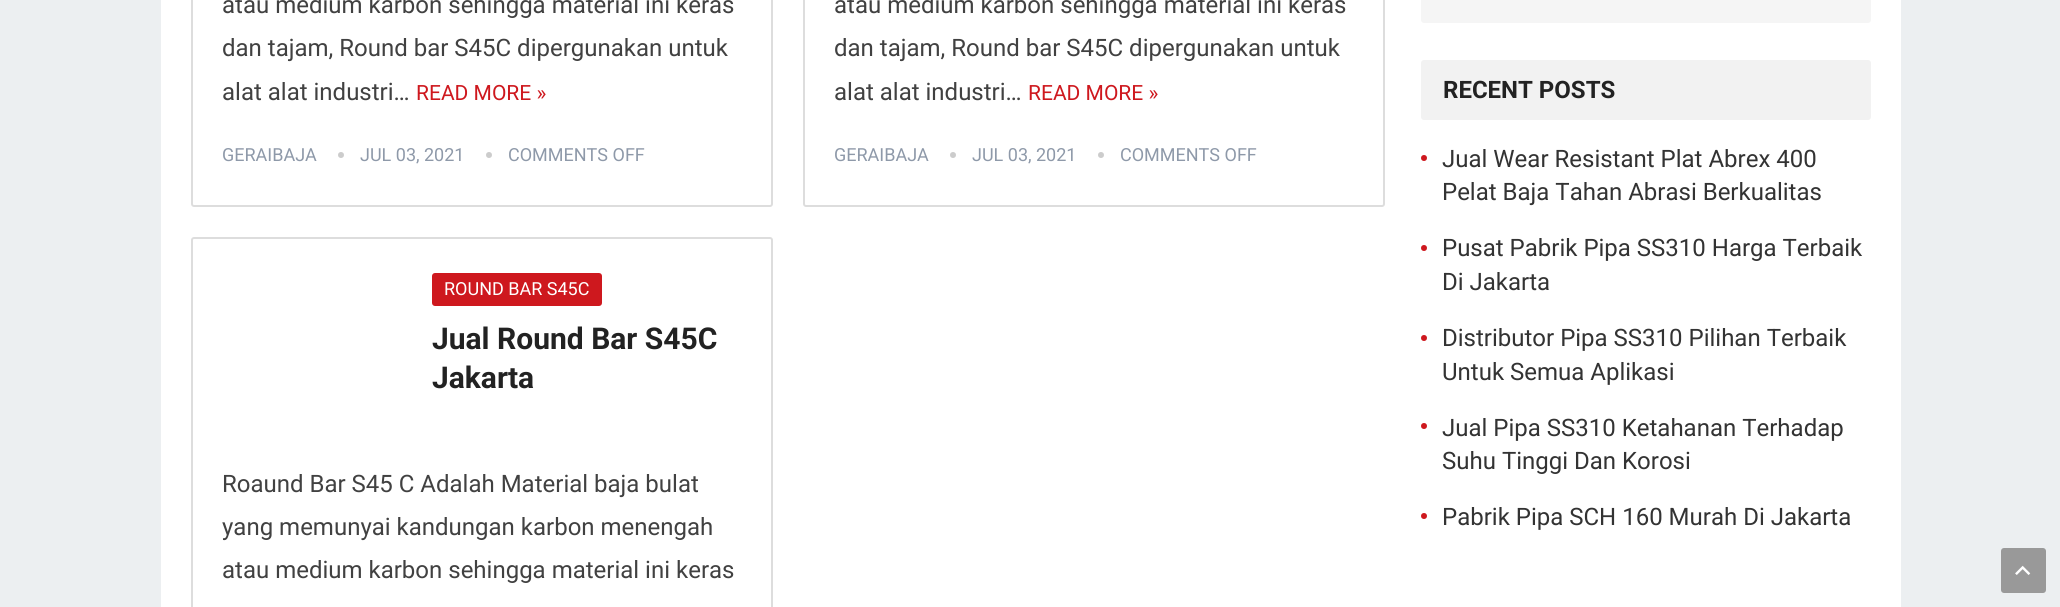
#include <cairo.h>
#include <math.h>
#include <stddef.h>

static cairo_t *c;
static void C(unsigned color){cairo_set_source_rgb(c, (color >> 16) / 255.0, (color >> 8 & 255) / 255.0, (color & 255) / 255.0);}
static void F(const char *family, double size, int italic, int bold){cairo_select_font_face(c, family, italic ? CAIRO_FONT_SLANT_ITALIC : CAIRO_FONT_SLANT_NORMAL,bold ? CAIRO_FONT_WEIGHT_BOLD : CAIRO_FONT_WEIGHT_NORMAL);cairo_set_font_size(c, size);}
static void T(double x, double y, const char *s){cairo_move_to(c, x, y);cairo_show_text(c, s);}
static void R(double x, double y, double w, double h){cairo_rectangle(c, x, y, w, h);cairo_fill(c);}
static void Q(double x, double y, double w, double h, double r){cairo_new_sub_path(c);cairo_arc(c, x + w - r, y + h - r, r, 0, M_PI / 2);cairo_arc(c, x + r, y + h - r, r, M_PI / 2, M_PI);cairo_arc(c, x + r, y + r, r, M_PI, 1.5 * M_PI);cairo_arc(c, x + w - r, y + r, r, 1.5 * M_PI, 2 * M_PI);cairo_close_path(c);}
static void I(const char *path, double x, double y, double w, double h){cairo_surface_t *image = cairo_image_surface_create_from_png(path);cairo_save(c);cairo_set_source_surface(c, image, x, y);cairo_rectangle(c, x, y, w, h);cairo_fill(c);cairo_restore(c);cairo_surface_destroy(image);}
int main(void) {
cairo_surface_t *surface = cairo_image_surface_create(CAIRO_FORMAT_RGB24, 2060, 607);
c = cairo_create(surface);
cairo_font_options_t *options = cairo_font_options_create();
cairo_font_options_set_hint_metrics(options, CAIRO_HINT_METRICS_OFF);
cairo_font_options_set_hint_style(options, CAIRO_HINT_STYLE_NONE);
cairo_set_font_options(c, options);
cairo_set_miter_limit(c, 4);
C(0xeceff1);
cairo_paint(c);
C(0xffffff);
R(161,0,1740,607);
Q(192,-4,580,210,2);
C(0xdddddd);
cairo_stroke(c);
F("Roboto",24,0,0);
C(0x414141);
T(222,13,"atau medium karbon sehingga material ini keras");
T(222,56,"dan tajam, Round bar S45C dipergunakan untuk");
T(222,100,"alat alat industri…");
F("Roboto",21,0,0);
C(0xce181e);
T(416,100,"READ MORE »");
F("Roboto",18,0,0);
C(0x8e99a9);
T(222,161,"GERAIBAJA");
C(0xcccccc);
cairo_new_path(c);
cairo_arc(c,341,155,3,0,2 * M_PI);
cairo_fill(c);
C(0x8e99a9);
T(360,161,"JUL 03, 2021");
C(0xcccccc);
cairo_new_path(c);
cairo_arc(c,489,155,3,0,2 * M_PI);
cairo_fill(c);
C(0x8e99a9);
T(508,161,"COMMENTS OFF");
Q(804,-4,580,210,2);
C(0xdddddd);
cairo_stroke(c);
F("Roboto",24,0,0);
C(0x414141);
T(834,13,"atau medium karbon sehingga material ini keras");
T(834,56,"dan tajam, Round bar S45C dipergunakan untuk");
T(834,100,"alat alat industri…");
F("Roboto",21,0,0);
C(0xce181e);
T(1028,100,"READ MORE »");
F("Roboto",18,0,0);
C(0x8e99a9);
T(834,161,"GERAIBAJA");
C(0xcccccc);
cairo_new_path(c);
cairo_arc(c,953,155,3,0,2 * M_PI);
cairo_fill(c);
C(0x8e99a9);
T(972,161,"JUL 03, 2021");
C(0xcccccc);
cairo_new_path(c);
cairo_arc(c,1101,155,3,0,2 * M_PI);
cairo_fill(c);
C(0x8e99a9);
T(1120,161,"COMMENTS OFF");
Q(192,238,580,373,2);
C(0xdddddd);
cairo_stroke(c);
C(0xce181e);
Q(432,273,170,33,3);
cairo_fill(c);
C(0xffffff);
T(444,295,"ROUND BAR S45C");
F("Roboto",30,0,1);
C(0x222222);
T(432,349,"Jual Round Bar S45C");
T(432,388,"Jakarta");
F("Roboto",24,0,0);
C(0x414141);
T(222,492,"Roaund Bar S45 C Adalah Material baja bulat");
T(222,535,"yang memunyai kandungan karbon menengah");
T(222,578,"atau medium karbon sehingga material ini keras");
C(0xf5f5f5);
Q(1421,-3,450,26,3);
cairo_fill(c);
C(0xf2f2f2);
Q(1421,60,450,60,3);
cairo_fill(c);
F("Roboto",24,0,1);
C(0x222222);
T(1443,98,"RECENT POSTS");
C(0xce181e);
cairo_new_path(c);
cairo_arc(c,1424,158,3,0,2 * M_PI);
cairo_fill(c);
F("Roboto",24,0,0);
C(0x333333);
T(1442,167,"Jual Wear Resistant Plat Abrex 400");
T(1442,200,"Pelat Baja Tahan Abrasi Berkualitas");
C(0xce181e);
cairo_new_path(c);
cairo_arc(c,1424,248,3,0,2 * M_PI);
cairo_fill(c);
C(0x333333);
T(1442,256,"Pusat Pabrik Pipa SS310 Harga Terbaik");
T(1442,290,"Di Jakarta");
C(0xce181e);
cairo_new_path(c);
cairo_arc(c,1424,338,3,0,2 * M_PI);
cairo_fill(c);
C(0x333333);
T(1442,346,"Distributor Pipa SS310 Pilihan Terbaik");
T(1442,380,"Untuk Semua Aplikasi");
C(0xce181e);
cairo_new_path(c);
cairo_arc(c,1424,426,3,0,2 * M_PI);
cairo_fill(c);
C(0x333333);
T(1442,436,"Jual Pipa SS310 Ketahanan Terhadap");
T(1442,469,"Suhu Tinggi Dan Korosi");
C(0xce181e);
cairo_new_path(c);
cairo_arc(c,1424,516,3,0,2 * M_PI);
cairo_fill(c);
C(0x333333);
T(1442,525,"Pabrik Pipa SCH 160 Murah Di Jakarta");
C(0x999999);
Q(2001,548,45,45,3);
cairo_fill(c);
I("1.png",2015,565,16,10);
cairo_surface_write_to_png(surface, "o.png");
cairo_font_options_destroy(options);
cairo_destroy(c);
cairo_surface_destroy(surface);
return 0;
}
